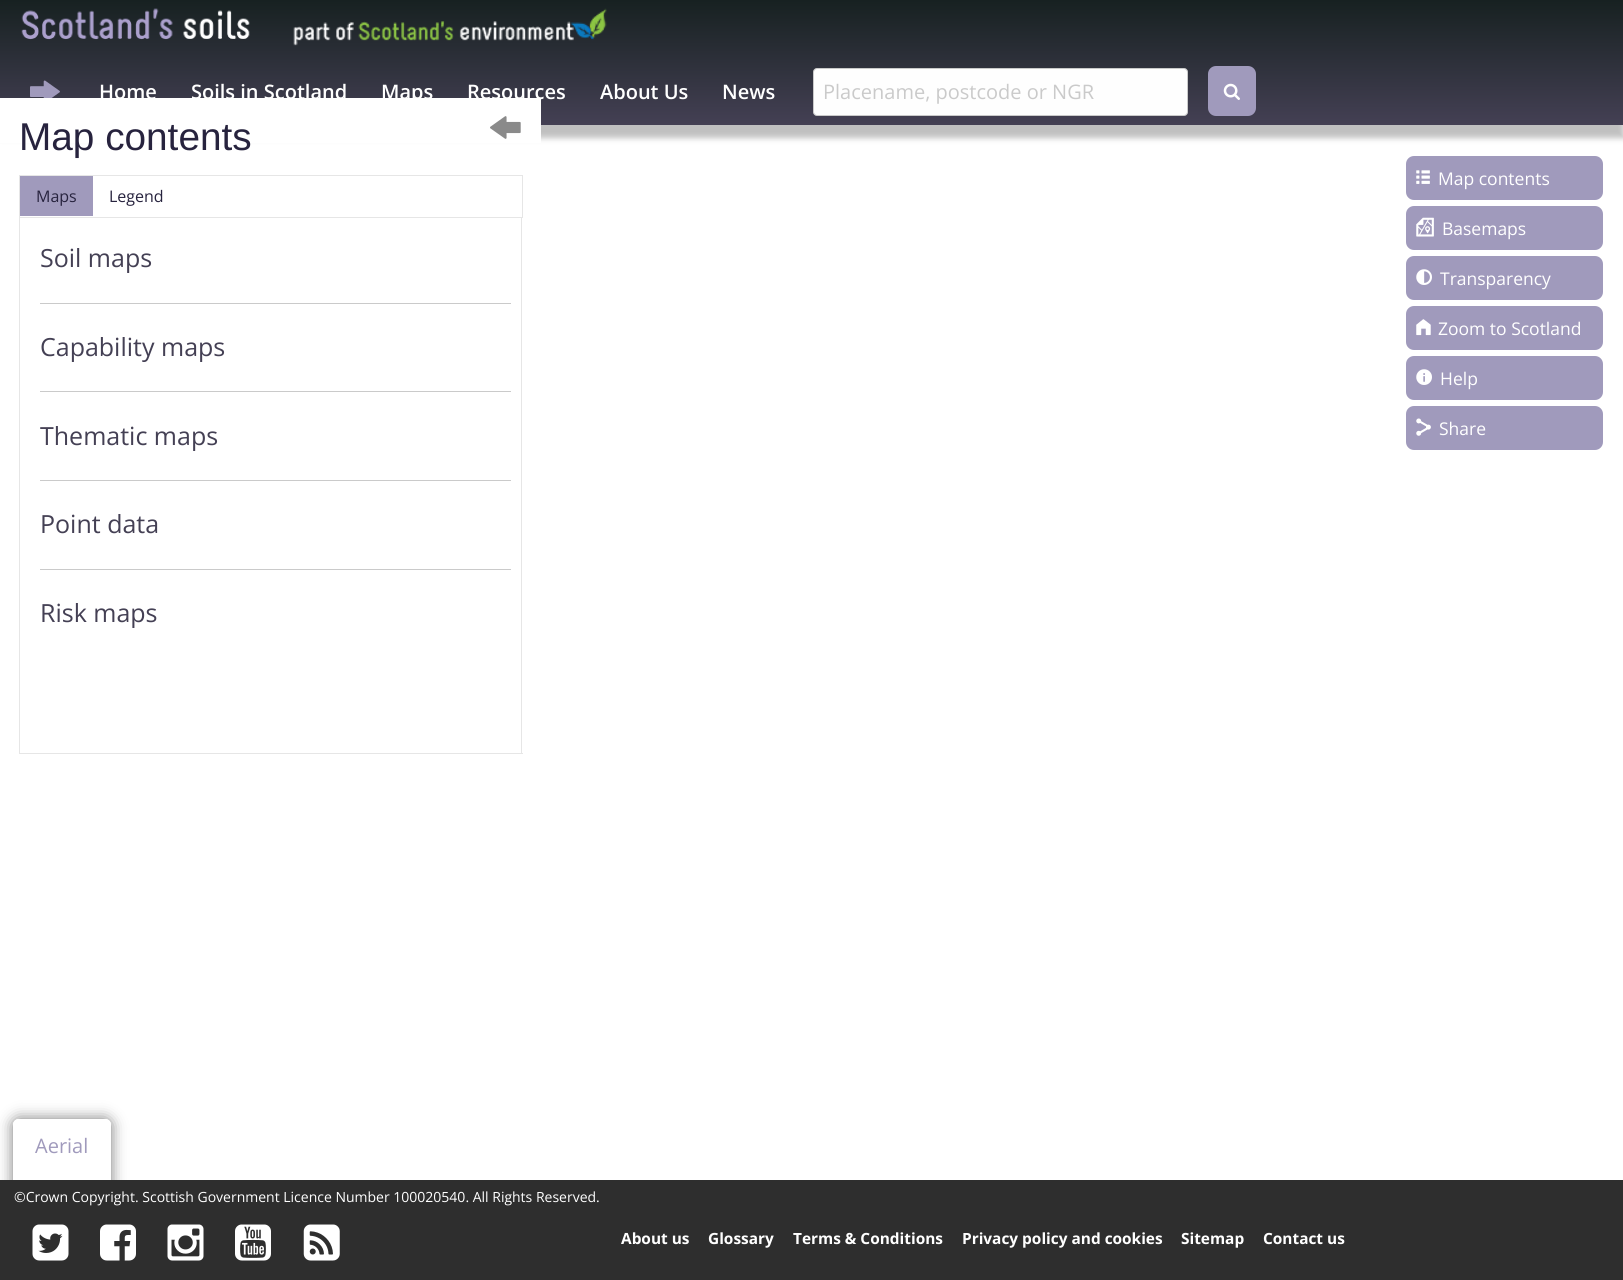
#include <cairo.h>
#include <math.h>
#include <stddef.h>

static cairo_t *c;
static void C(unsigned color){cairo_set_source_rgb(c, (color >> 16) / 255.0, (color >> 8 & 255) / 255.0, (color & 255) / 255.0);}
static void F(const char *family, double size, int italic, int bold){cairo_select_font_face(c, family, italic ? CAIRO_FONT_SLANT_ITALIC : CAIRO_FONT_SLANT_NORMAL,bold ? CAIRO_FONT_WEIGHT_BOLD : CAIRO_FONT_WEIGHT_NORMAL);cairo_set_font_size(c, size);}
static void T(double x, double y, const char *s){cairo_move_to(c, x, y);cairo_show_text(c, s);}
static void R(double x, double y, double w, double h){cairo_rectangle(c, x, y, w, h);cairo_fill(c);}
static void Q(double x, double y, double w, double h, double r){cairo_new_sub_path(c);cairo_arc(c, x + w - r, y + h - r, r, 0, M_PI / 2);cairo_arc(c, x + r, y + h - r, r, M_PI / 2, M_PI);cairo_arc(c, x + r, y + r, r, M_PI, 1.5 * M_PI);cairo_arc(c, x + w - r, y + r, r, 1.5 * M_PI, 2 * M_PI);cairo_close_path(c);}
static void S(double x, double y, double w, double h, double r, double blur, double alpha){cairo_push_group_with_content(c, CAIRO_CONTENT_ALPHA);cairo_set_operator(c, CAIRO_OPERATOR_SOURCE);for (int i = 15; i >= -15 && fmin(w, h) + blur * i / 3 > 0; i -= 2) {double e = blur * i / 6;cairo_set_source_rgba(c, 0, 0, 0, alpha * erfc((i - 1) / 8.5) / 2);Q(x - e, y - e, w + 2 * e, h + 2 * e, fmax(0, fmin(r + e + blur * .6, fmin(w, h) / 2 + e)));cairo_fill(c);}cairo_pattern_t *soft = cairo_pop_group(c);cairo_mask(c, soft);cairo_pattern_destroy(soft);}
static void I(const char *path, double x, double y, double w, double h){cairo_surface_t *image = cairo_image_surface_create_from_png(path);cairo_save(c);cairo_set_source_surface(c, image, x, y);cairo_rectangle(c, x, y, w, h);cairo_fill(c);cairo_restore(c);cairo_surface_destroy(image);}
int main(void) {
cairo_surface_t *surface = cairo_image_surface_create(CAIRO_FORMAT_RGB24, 1623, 1280);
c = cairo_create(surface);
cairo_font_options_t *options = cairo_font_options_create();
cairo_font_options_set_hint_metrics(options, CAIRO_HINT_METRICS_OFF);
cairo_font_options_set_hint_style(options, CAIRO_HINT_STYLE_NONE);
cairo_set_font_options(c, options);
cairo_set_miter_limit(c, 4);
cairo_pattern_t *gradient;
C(0xffffff);
cairo_paint(c);
C(0x000000);
S(0,13,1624,125,0,3,.25);
gradient = cairo_pattern_create_linear(812,0,812,125);
cairo_pattern_add_color_stop_rgba(gradient,0,0.09,0.129,0.129,1);
cairo_pattern_add_color_stop_rgba(gradient,1,0.267,0.251,0.329,1);
cairo_set_source(c,gradient);
cairo_pattern_destroy(gradient);
R(0,0,1623,125);
I("1.png",21,8,229,32);
I("2.png",293,8,314,38);
I("3.png",30,80,30,18);
F("Open Sans SemiBold",20,0,0);
C(0xffffff);
T(99,99,"Home");
T(191,99,"Soils in Scotland");
T(381,99,"Maps");
T(467,99,"Resources");
T(600,99,"About Us");
T(722,99,"News");
C(0xfefefe);
Q(813.5,68.5,374,47,3.5);
cairo_fill_preserve(c);
C(0xcacaca);
cairo_set_line_width(c,1);
cairo_stroke(c);
F("Open Sans",20,0,0);
T(823,99,"Placename, postcode or NGR");
C(0xa09abc);
Q(1208,66,48,50,8);
cairo_fill(c);
I("4.png",1223,83,17,17);
C(0xffffff);
R(0,98,541,45);
F("Liberation Sans",38.75,0,0);
C(0x27233e);
T(19,150,"Map contents");
I("5.png",490,116,31,23);
cairo_rectangle(c,19.5,175.5,503,42);
C(0xe6e6e6);
cairo_stroke(c);
C(0xa09abc);
R(20,176,73,40);
F("Open Sans",16,0,0);
C(0x27233e);
T(36,202,"Maps");
T(109,202,"Legend");
C(0xe6e6e6);
R(521,218,1,536);
R(19,753,504,1);
R(19,218,1,536);
F("Open Sans",25,0,0);
C(0x444054);
T(40,267,"Soil maps");
C(0xcacaca);
R(40,303,471,1);
C(0x444054);
T(40,356,"Capability maps");
C(0xcacaca);
R(40,391,471,1);
C(0x444054);
T(40,445,"Thematic maps");
C(0xcacaca);
R(40,480,471,1);
C(0x444054);
T(40,533,"Point data");
C(0xcacaca);
R(40,569,471,1);
C(0x444054);
T(40,622,"Risk maps");
C(0xa09abc);
Q(1406,156,197,44,8);
cairo_fill(c);
I("6.png",1416,170,14,14);
F("Open Sans",17.5,0,0);
C(0xffffff);
T(1438,185,"Map contents");
C(0xa09abc);
Q(1406,206,197,44,8);
cairo_fill(c);
I("7.png",1416,217,18,20);
C(0xffffff);
T(1442,235,"Basemaps");
C(0xa09abc);
Q(1406,256,197,44,8);
cairo_fill(c);
I("8.png",1416,269,16,16);
C(0xffffff);
T(1440,285,"Transparency");
C(0xa09abc);
Q(1406,306,197,44,8);
cairo_fill(c);
I("9.png",1416,319,15,17);
C(0xffffff);
T(1438,335,"Zoom to Scotland");
C(0xa09abc);
Q(1406,356,197,44,8);
cairo_fill(c);
I("10.png",1416,369,16,16);
C(0xffffff);
T(1440,385,"Help");
C(0xa09abc);
Q(1406,406,197,44,8);
cairo_fill(c);
I("11.png",1416,418,15,18);
C(0xffffff);
T(1439,435,"Share");
cairo_save(c);
cairo_set_fill_rule(c,CAIRO_FILL_RULE_EVEN_ODD);
cairo_new_path(c);
cairo_move_to(c,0,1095);
cairo_line_to(c,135,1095);
cairo_line_to(c,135,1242);
cairo_line_to(c,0,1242);
cairo_close_path(c);
cairo_move_to(c,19,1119);
cairo_line_to(c,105,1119);
cairo_curve_to(c,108.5,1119,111,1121.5,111,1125);
cairo_line_to(c,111,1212);
cairo_curve_to(c,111,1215.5,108.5,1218,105,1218);
cairo_line_to(c,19,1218);
cairo_curve_to(c,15.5,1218,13,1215.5,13,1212);
cairo_line_to(c,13,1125);
cairo_curve_to(c,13,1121.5,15.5,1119,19,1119);
cairo_close_path(c);
cairo_clip(c);
C(0x777777);
S(13,1119,98,99,6,7.5,1);
cairo_restore(c);
Q(14.5,1120.5,95,96,4.5);
cairo_set_line_width(c,3);
cairo_stroke(c);
F("Open Sans",20,0,0);
C(0xa09abc);
T(35,1153,"Aerial");
C(0x2e2e2e);
R(0,1180,1623,100);
F("Open Sans",14,0,0);
C(0xffffff);
T(14,1202,"©Crown Copyright. Scottish Government Licence Number 100020540. All Rights Reserved.");
I("12.png",32,1224,37,37);
I("13.png",100,1224,36,37);
I("14.png",167,1224,37,37);
I("15.png",235,1224,36,37);
I("16.png",303,1224,37,37);
F("Open Sans",15.4,0,1);
T(621,1244,"About us");
T(708,1244,"Glossary");
T(793,1244,"Terms & Conditions");
T(962,1244,"Privacy policy and cookies");
T(1181,1244,"Sitemap");
T(1263,1244,"Contact us");
cairo_surface_write_to_png(surface, "o.png");
cairo_font_options_destroy(options);
cairo_destroy(c);
cairo_surface_destroy(surface);
return 0;
}
